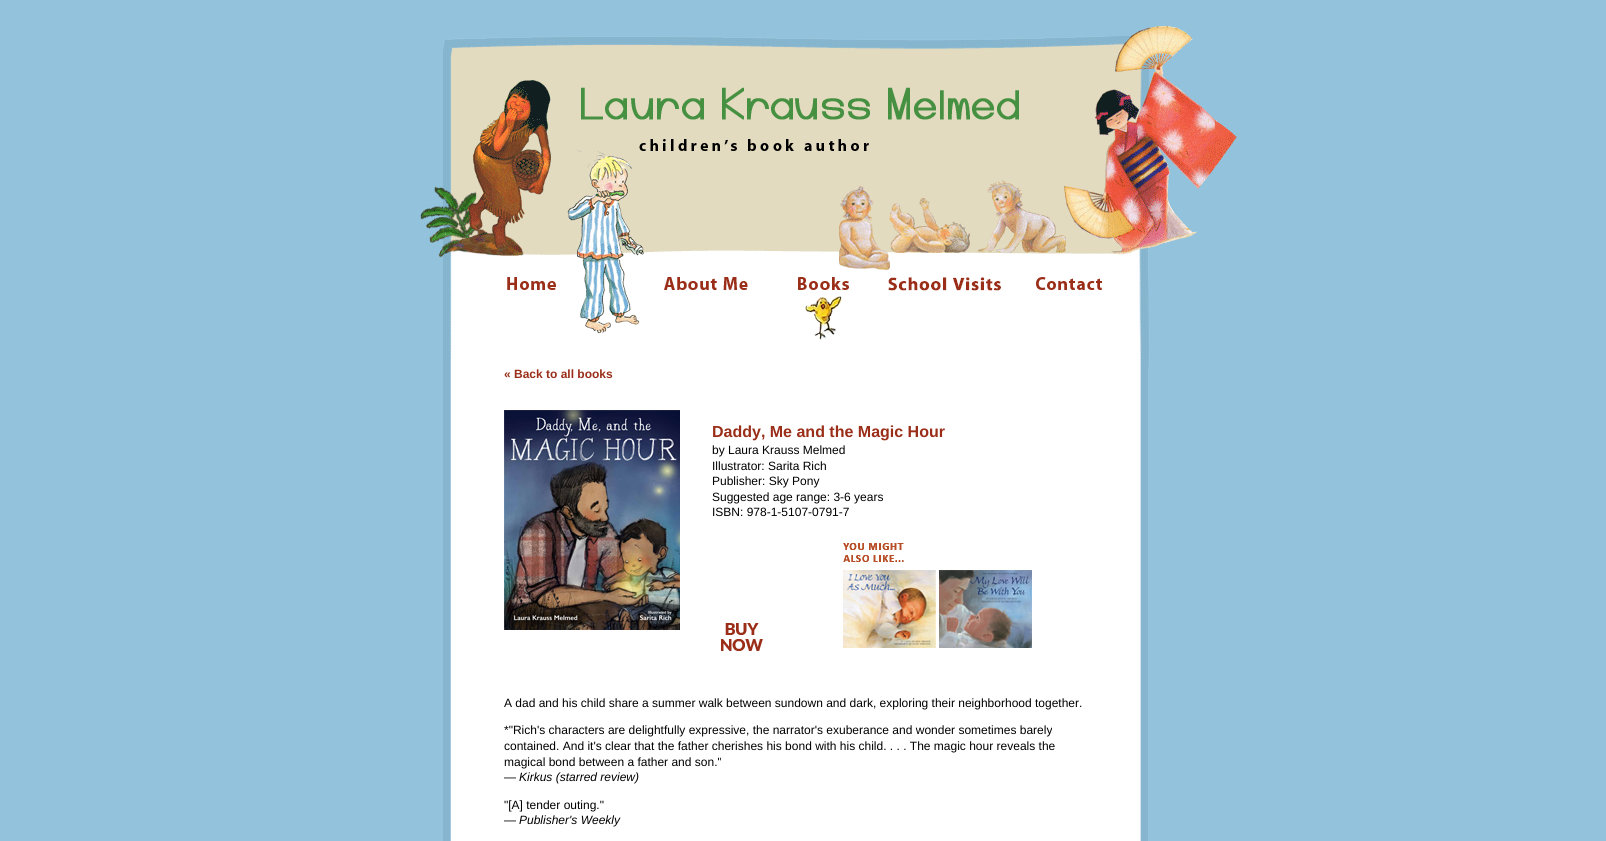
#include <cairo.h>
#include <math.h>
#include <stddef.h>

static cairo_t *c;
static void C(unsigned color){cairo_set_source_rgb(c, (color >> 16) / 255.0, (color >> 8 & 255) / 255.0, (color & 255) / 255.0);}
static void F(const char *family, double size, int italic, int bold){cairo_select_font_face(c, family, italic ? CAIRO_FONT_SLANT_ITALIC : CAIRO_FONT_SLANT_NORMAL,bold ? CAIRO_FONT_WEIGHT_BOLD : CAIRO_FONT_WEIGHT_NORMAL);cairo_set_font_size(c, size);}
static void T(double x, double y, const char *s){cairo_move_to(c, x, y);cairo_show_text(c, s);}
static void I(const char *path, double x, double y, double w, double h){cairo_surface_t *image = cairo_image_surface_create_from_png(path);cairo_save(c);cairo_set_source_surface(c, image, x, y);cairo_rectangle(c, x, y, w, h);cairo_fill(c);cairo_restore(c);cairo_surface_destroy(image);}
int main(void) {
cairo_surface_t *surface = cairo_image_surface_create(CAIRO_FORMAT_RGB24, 1606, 841);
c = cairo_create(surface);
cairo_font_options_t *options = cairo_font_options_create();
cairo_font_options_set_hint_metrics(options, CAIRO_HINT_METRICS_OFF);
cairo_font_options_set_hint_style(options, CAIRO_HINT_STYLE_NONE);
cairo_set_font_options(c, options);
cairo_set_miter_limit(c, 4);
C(0x93c3dc);
cairo_paint(c);
I("1.png",420,26,817,341);
I("2.png",577,87,442,65);
I("3.png",507,277,49,13);
I("4.png",664,277,84,13);
I("5.png",798,277,51,63);
I("6.png",888,277,113,14);
I("7.png",1036,277,66,13);
I("8.png",443,359,705,482);
F("Liberation Sans",12,0,1);
C(0x9a2e19);
T(504,378,"« Back to all books");
I("9.png",504,410,176,220);
F("Liberation Sans",16,0,1);
T(712,437,"Daddy, Me and the Magic Hour");
F("Liberation Sans",12,0,0);
C(0x000000);
T(712,454,"by Laura Krauss Melmed");
T(712,470,"Illustrator: Sarita Rich");
T(712,485,"Publisher: Sky Pony");
T(712,501,"Suggested age range: 3-6 years");
T(712,516,"ISBN: 978-1-5107-0791-7");
I("10.png",843,543,61,23);
I("11.png",721,623,42,28);
I("12.png",843,570,93,78);
I("13.png",939,570,93,78);
T(504,707,"A dad and his child share a summer walk between sundown and dark, exploring their neighborhood together.");
T(504,734,"*\"Rich's characters are delightfully expressive, the narrator's exuberance and wonder sometimes barely");
T(504,750,"contained. And it's clear that the father cherishes his bond with his child. . . . The magic hour reveals the");
T(504,766,"magical bond between a father and son.\"");
T(504,781,"—");
F("Liberation Sans",12,1,0);
T(519,781,"Kirkus (starred review)");
F("Liberation Sans",12,0,0);
T(504,809,"\"[A] tender outing.\"");
T(504,824,"—");
F("Liberation Sans",12,1,0);
T(519,824,"Publisher's Weekly");
cairo_surface_write_to_png(surface, "o.png");
cairo_font_options_destroy(options);
cairo_destroy(c);
cairo_surface_destroy(surface);
return 0;
}
